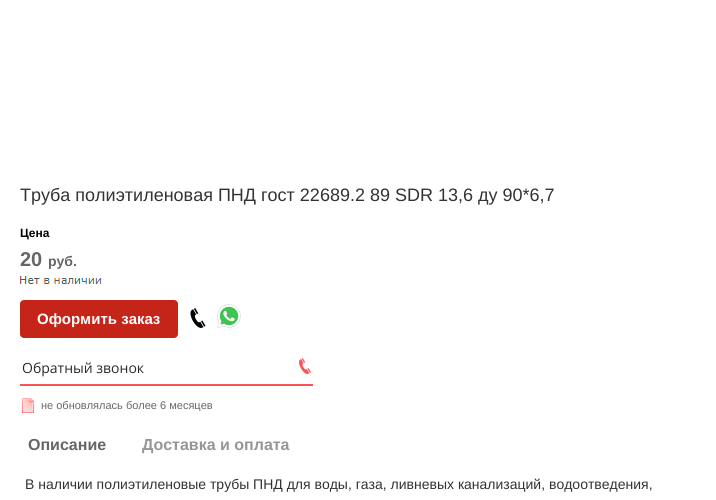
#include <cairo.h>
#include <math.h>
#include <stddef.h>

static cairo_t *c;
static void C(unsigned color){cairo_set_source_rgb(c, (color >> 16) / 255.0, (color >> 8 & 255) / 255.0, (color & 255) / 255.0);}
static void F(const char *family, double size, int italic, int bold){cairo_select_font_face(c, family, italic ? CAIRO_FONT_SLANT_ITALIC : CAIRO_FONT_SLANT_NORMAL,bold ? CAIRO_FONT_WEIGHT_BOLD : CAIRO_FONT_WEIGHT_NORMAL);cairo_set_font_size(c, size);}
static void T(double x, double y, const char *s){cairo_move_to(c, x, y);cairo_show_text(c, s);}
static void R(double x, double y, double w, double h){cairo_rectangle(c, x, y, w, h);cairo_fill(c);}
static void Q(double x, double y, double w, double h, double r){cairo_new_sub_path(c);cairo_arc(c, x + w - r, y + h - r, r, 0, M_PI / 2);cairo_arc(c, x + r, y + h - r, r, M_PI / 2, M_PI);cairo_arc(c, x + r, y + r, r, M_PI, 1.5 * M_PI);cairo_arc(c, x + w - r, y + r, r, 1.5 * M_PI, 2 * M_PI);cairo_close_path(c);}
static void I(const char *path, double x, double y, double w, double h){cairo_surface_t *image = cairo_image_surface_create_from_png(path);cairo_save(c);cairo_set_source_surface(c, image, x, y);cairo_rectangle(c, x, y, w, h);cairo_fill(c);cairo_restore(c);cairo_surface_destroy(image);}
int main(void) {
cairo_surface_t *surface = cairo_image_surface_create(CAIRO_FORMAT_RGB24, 716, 500);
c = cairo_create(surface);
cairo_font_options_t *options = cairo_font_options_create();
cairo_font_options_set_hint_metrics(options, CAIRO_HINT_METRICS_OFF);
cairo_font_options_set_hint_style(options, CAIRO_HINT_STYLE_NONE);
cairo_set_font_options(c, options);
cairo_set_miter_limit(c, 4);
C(0xffffff);
cairo_paint(c);
F("Liberation Sans",18,0,0);
C(0x333333);
T(20,201,"Труба полиэтиленовая ПНД гост 22689.2 89 SDR 13,6 ду 90*6,7");
F("Liberation Sans",12,0,1);
C(0x000000);
T(20,237,"Цена");
F("Liberation Sans",20,0,1);
C(0x666666);
T(20,266,"20");
F("Liberation Sans",14,0,1);
T(48,266,"руб.");
I("1.png",20,276,82,8);
C(0xc52519);
Q(20,300,158,38,4);
cairo_fill(c);
F("Liberation Sans",15,0,1);
C(0xffffff);
T(37,324,"Оформить заказ");
I("2.png",190,308,16,20);
I("3.png",217,304,24,24);
C(0xfa5555);
R(20,384,293,2);
F("Open Sans",14,0,0);
C(0x2a2a2a);
T(22,373,"Обратный звонок");
I("4.png",299,358,12,16);
I("5.png",22,398,12,15);
F("Liberation Sans",11,0,0);
C(0x666666);
T(41,409,"не обновлялась более 6 месяцев");
F("Liberation Sans",16,0,1);
T(28,450,"Описание");
C(0x969696);
T(142,450,"Доставка и оплата");
F("Liberation Sans",14,0,0);
C(0x333333);
T(25,489,"В наличии полиэтиленовые трубы ПНД для воды, газа, ливневых канализаций, водоотведения,");
cairo_surface_write_to_png(surface, "o.png");
cairo_font_options_destroy(options);
cairo_destroy(c);
cairo_surface_destroy(surface);
return 0;
}
